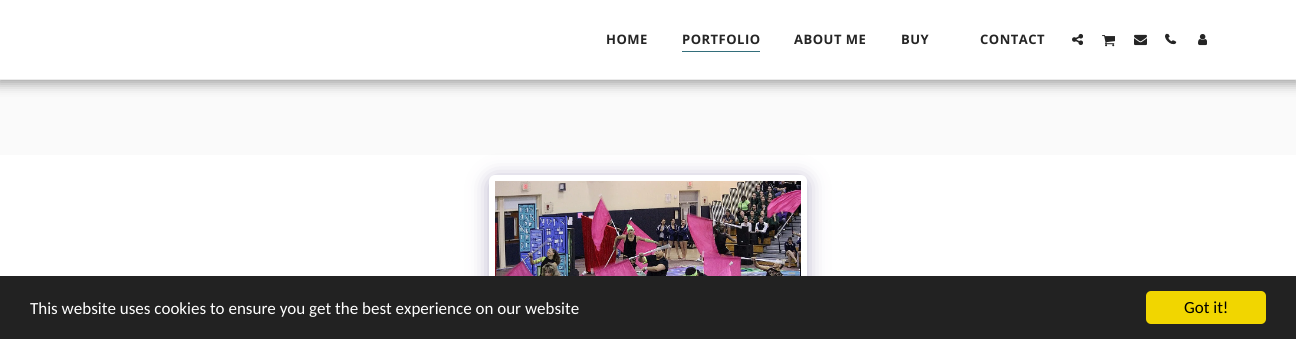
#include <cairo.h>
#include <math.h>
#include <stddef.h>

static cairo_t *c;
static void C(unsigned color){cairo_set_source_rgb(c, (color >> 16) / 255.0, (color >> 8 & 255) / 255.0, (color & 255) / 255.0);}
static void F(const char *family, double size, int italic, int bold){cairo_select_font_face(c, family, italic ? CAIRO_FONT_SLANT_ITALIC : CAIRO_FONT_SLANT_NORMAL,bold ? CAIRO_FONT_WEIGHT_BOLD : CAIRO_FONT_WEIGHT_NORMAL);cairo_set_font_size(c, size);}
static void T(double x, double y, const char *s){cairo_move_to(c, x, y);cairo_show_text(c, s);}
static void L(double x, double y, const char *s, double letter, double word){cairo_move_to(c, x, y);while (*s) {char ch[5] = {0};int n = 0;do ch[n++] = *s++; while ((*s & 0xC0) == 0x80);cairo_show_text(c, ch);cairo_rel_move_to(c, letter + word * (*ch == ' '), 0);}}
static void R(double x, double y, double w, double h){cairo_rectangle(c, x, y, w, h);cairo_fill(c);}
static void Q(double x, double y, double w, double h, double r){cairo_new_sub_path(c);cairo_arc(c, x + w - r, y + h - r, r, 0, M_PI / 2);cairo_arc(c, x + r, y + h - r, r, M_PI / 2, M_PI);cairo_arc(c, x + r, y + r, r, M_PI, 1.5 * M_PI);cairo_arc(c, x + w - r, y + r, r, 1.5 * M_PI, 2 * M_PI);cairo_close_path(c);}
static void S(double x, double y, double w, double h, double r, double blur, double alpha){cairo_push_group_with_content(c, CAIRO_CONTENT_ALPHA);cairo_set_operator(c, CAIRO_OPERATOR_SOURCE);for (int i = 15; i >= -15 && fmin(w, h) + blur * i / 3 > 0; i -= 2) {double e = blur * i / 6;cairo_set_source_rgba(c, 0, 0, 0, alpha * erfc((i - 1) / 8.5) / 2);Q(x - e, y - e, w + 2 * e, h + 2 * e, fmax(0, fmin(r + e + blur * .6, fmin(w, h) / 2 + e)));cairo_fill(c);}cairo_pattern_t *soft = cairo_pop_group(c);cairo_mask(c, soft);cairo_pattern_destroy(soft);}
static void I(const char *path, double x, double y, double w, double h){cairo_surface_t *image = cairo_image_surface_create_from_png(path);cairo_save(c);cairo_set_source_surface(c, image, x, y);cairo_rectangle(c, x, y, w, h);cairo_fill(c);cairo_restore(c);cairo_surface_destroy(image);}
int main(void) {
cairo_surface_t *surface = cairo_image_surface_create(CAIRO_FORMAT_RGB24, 1296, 339);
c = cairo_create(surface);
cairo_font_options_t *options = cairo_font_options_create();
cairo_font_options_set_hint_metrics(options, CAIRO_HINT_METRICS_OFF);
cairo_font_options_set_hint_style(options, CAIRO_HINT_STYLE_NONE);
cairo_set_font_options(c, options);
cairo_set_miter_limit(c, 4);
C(0xffffff);
cairo_paint(c);
C(0xfafafa);
R(0,80,1296,75);
C(0x000000);
S(-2,0,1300,84,0,6,.35);
C(0xffffff);
R(0,0,1296,79);
C(0xebebeb);
R(0,79,1296,1);
F("Open Sans",13,0,1);
C(0x252525);
L(606,44,"HOME",.5,0);
L(682,44,"PORTFOLIO",.5,0);
C(0x336e7b);
R(682,51,78,1);
C(0x252525);
L(794,44,"ABOUT ME",.5,0);
L(901,44,"BUY",.5,0);
L(980,44,"CONTACT",.5,0);
I("1.png",1072,33,11,13);
I("2.png",1102,35,13,12);
I("3.png",1134,34,13,12);
I("4.png",1166,34,11,11);
I("5.png",1165,33,11,11);
I("6.png",1198,34,9,12);
C(0x4d3f7a);
S(489,178,318,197,6,10,.4);
C(0xffffff);
Q(489,175,318,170,6);
cairo_fill(c);
I("7.png",495,181,306,95);
C(0x222222);
R(0,276,1296,63);
F("Carlito",17,0,0);
C(0xffffff);
T(30,314,"This website uses cookies to ensure you get the best experience on our website");
C(0xf1d600);
Q(1146,291,120,33,5);
cairo_fill(c);
C(0x000000);
T(1184,313,"Got it!");
cairo_surface_write_to_png(surface, "o.png");
cairo_font_options_destroy(options);
cairo_destroy(c);
cairo_surface_destroy(surface);
return 0;
}
